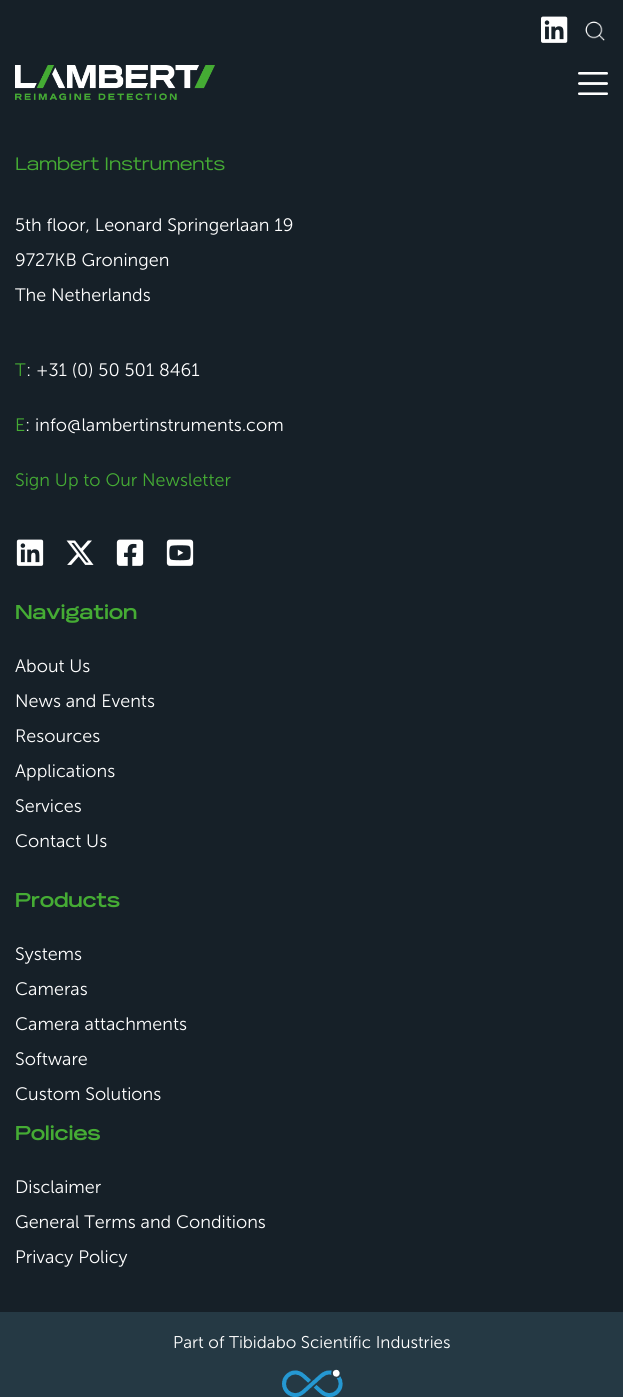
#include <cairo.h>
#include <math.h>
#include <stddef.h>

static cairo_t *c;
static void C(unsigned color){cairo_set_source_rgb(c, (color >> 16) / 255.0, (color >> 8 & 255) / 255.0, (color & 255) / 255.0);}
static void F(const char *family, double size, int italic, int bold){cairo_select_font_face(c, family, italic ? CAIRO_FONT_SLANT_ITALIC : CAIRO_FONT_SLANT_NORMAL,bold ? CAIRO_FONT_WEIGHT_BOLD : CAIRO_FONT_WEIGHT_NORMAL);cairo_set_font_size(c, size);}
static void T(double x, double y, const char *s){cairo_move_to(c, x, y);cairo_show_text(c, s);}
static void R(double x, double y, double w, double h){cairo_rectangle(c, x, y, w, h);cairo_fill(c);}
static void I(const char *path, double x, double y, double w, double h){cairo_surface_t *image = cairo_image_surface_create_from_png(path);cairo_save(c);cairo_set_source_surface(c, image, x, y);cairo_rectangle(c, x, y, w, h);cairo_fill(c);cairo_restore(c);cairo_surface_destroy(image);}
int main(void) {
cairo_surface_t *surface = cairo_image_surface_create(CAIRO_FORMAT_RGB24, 623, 1397);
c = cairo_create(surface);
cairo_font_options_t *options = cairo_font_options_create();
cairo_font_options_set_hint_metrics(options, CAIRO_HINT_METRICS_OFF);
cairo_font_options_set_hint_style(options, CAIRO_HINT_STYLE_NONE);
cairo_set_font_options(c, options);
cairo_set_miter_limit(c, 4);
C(0x162028);
cairo_paint(c);
I("1.png",541,16,27,27);
I("2.png",585,21,20,20);
I("3.png",15,65,200,35);
I("4.png",578,72,30,23);
F("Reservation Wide",18,0,0);
C(0x45ac34);
T(15,170,"Lambert Instruments");
F("Museo Sans Light",18,0,0);
C(0xffffff);
T(15,231,"5th floor, Leonard Springerlaan 19");
T(15,266,"9727KB Groningen");
T(15,301,"The Netherlands");
C(0x45ac34);
T(15,376,"T");
C(0xffffff);
T(26,376,": +31 (0) 50 501 8461");
C(0x45ac34);
T(15,431,"E");
C(0xffffff);
T(25,431,": info@lambertinstruments.com");
C(0x45ac34);
T(15,486,"Sign Up to Our Newsletter");
I("5.png",16,539,28,27);
I("6.png",66,540,28,25);
I("7.png",116,539,28,27);
I("8.png",166,539,28,27);
F("Reservation Wide",20,0,1);
T(15,619,"Navigation");
F("Museo Sans Light",18,0,0);
C(0xffffff);
T(15,672,"About Us");
T(15,707,"News and Events");
T(15,742,"Resources");
T(15,777,"Applications");
T(15,812,"Services");
T(15,847,"Contact Us");
F("Reservation Wide",20,0,1);
C(0x45ac34);
T(15,907,"Products");
F("Museo Sans Light",18,0,0);
C(0xffffff);
T(15,960,"Systems");
T(15,995,"Cameras");
T(15,1030,"Camera attachments");
T(15,1065,"Software");
T(15,1100,"Custom Solutions");
F("Reservation Wide",20,0,1);
C(0x45ac34);
T(15,1140,"Policies");
F("Museo Sans Light",18,0,0);
C(0xffffff);
T(15,1193,"Disclaimer");
T(15,1228,"General Terms and Conditions");
T(15,1263,"Privacy Policy");
C(0x253944);
R(0,1312,623,85);
F("Museo Sans Light",17,0,0);
C(0xffffff);
T(173,1348,"Part of Tibidabo Scientific Industries");
I("9.png",282,1369,61,28);
cairo_surface_write_to_png(surface, "o.png");
cairo_font_options_destroy(options);
cairo_destroy(c);
cairo_surface_destroy(surface);
return 0;
}
